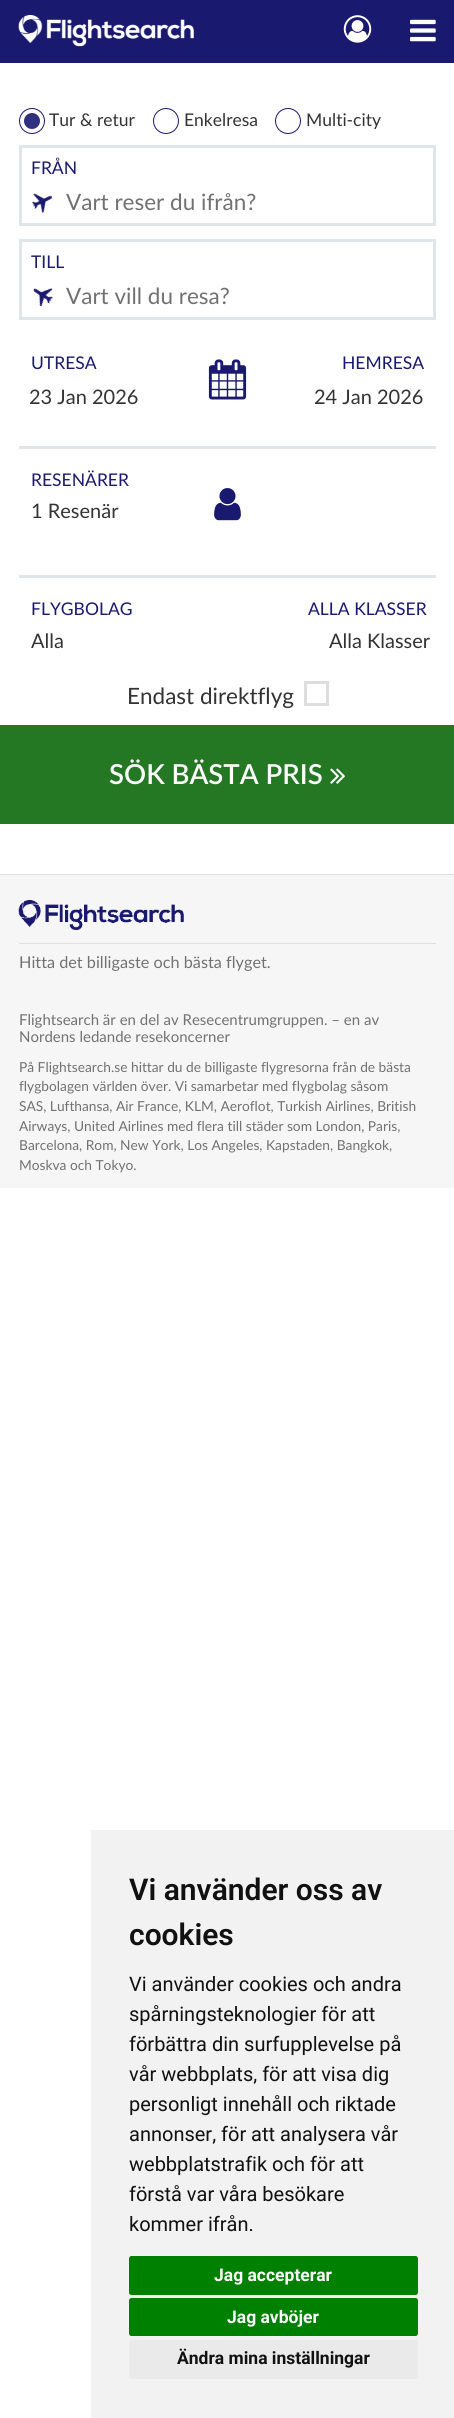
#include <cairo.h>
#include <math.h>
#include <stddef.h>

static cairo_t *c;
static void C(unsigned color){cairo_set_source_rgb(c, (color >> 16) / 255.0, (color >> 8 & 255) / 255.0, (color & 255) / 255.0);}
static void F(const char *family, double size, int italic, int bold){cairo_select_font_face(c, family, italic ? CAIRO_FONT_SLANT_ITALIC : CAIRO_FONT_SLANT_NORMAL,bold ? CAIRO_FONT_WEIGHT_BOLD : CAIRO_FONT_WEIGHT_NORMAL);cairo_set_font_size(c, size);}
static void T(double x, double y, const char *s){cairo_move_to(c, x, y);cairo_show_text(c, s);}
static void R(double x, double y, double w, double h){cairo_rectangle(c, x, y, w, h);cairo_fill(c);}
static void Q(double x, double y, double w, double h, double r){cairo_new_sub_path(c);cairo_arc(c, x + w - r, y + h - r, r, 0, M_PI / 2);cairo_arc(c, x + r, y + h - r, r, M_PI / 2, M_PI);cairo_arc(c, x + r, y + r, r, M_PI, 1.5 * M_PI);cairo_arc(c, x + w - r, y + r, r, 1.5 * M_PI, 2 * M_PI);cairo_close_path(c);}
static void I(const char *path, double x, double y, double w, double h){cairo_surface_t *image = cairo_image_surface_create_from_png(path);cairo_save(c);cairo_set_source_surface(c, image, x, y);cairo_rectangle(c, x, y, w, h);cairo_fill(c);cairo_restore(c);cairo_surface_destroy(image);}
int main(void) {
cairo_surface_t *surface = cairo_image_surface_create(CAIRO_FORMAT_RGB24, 454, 2418);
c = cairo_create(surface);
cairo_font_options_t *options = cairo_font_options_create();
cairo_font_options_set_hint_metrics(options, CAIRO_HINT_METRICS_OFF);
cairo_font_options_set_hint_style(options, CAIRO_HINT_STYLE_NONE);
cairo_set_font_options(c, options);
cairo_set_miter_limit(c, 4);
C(0xffffff);
cairo_paint(c);
C(0x191970);
R(0,0,454,63);
I("1.png",18,15,176,32);
I("2.png",343,15,29,28);
I("3.png",410,19,26,23);
cairo_arc(c,32,121,12.5,0,2 * M_PI);
cairo_set_line_width(c,1);
cairo_stroke(c);
C(0x30307e);
cairo_arc(c,32,121,8,0,2 * M_PI);
cairo_fill(c);
F("Lato",17.5,0,0);
C(0x333333);
T(49,126,"Tur & retur");
cairo_new_path(c);
cairo_arc(c,166,121,12.5,0,2 * M_PI);
C(0x191970);
cairo_stroke(c);
C(0x333333);
T(184,126,"Enkelresa");
cairo_new_path(c);
cairo_arc(c,288,121,12.5,0,2 * M_PI);
C(0x191970);
cairo_stroke(c);
C(0x333333);
T(306,126,"Multi-city");
cairo_rectangle(c,20.5,146.5,414,78);
C(0xdfe5e9);
cairo_set_line_width(c,3);
cairo_stroke(c);
C(0x191970);
T(31,174,"FRÅN");
I("4.png",31,193,22,20);
F("Lato",22.5,0,0);
C(0x727171);
T(66,210,"Vart reser du ifrån?");
cairo_rectangle(c,20.5,240.5,414,78);
C(0xdfe5e9);
cairo_stroke(c);
F("Lato",17.5,0,0);
C(0x191970);
T(31,268,"TILL");
I("5.png",33,288,20,19);
F("Lato",22.5,0,0);
C(0x727171);
T(66,304,"Vart vill du resa?");
F("Lato",17.5,0,0);
C(0x191970);
T(31,369,"UTRESA");
F("Lato",20,0,0);
C(0x333333);
T(29,404,"23 Jan 2026");
I("6.png",208,359,39,41);
F("Lato",17.5,0,0);
C(0x191970);
T(342,369,"HEMRESA");
F("Lato",20,0,0);
C(0x333333);
T(314,404,"24 Jan 2026");
C(0xdfe5e9);
R(19,446,417,3);
F("Lato",17.5,0,0);
C(0x191970);
T(31,486,"RESENÄRER");
F("Lato",20,0,0);
C(0x333333);
T(31,518,"1 Resenär");
I("7.png",214,488,27,33);
C(0xdfe5e9);
R(19,575,417,3);
F("Lato",17.5,0,0);
C(0x191970);
T(31,615,"FLYGBOLAG");
F("Lato",20,0,0);
C(0x333333);
T(31,648,"Alla");
F("Lato",17.5,0,0);
C(0x191970);
T(308,615,"ALLA KLASSER");
F("Lato",20,0,0);
C(0x333333);
T(329,648,"Alla Klasser");
F("Lato",22.5,0,0);
T(127,704,"Endast direktflyg");
cairo_rectangle(c,305.5,682.5,22,22);
C(0xdddddd);
cairo_stroke(c);
C(0x247824);
R(0,725,454,99);
F("Lato SemiBold",27.5,0,0);
C(0xffffff);
T(109,784,"SÖK BÄSTA PRIS");
I("8.png",330,768,15,16);
C(0xf7f6f6);
R(0,875,454,313);
C(0xe0e0e0);
R(0,874,454,1);
R(19,943,417,1);
I("9.png",18,900,166,30);
F("Lato",16.25,0,0);
C(0x727171);
T(19,968,"Hitta det billigaste och bästa flyget.");
F("Lato",15,0,0);
T(19,1025,"Flightsearch är en del av Resecentrumgruppen. – en av");
T(19,1042,"Nordens ledande resekoncerner");
F("Lato",13.75,0,0);
T(19,1072,"På Flightsearch.se hittar du de billigaste flygresorna från de bästa");
T(19,1091,"flygbolagen världen över. Vi samarbetar med flygbolag såsom");
T(19,1111,"SAS, Lufthansa, Air France, KLM, Aeroflot, Turkish Airlines, British");
T(19,1131,"Airways, United Airlines med flera till städer som London, Paris,");
T(19,1150,"Barcelona, Rom, New York, Los Angeles, Kapstaden, Bangkok,");
T(19,1170,"Moskva och Tokyo.");
C(0xf2f2f2);
R(91,1830,363,588);
F("Roboto SemiBold",30,0,0);
C(0x111111);
T(129,1900,"Vi använder oss av");
T(129,1945,"cookies");
F("Roboto",20,0,0);
T(129,1991,"Vi använder cookies och andra");
T(129,2021,"spårningsteknologier för att");
T(129,2051,"förbättra din surfupplevelse på");
T(129,2081,"vår webbplats, för att visa dig");
T(129,2111,"personligt innehåll och riktade");
T(129,2141,"annonser, för att analysera vår");
T(129,2171,"webbplatstrafik och för att");
T(129,2201,"förstå var våra besökare");
T(129,2231,"kommer ifrån.");
C(0x008000);
Q(129,2256,289,39,2.5);
cairo_fill(c);
F("Roboto",17.5,0,1);
C(0xffffff);
T(214,2281,"Jag accepterar");
C(0x008000);
Q(129,2298,289,38,2.5);
cairo_fill(c);
C(0xffffff);
T(227,2323,"Jag avböjer");
C(0xeaeaea);
Q(129,2340,289,39,2.5);
cairo_fill(c);
C(0x111111);
T(177,2364,"Ändra mina inställningar");
cairo_surface_write_to_png(surface, "o.png");
cairo_font_options_destroy(options);
cairo_destroy(c);
cairo_surface_destroy(surface);
return 0;
}
